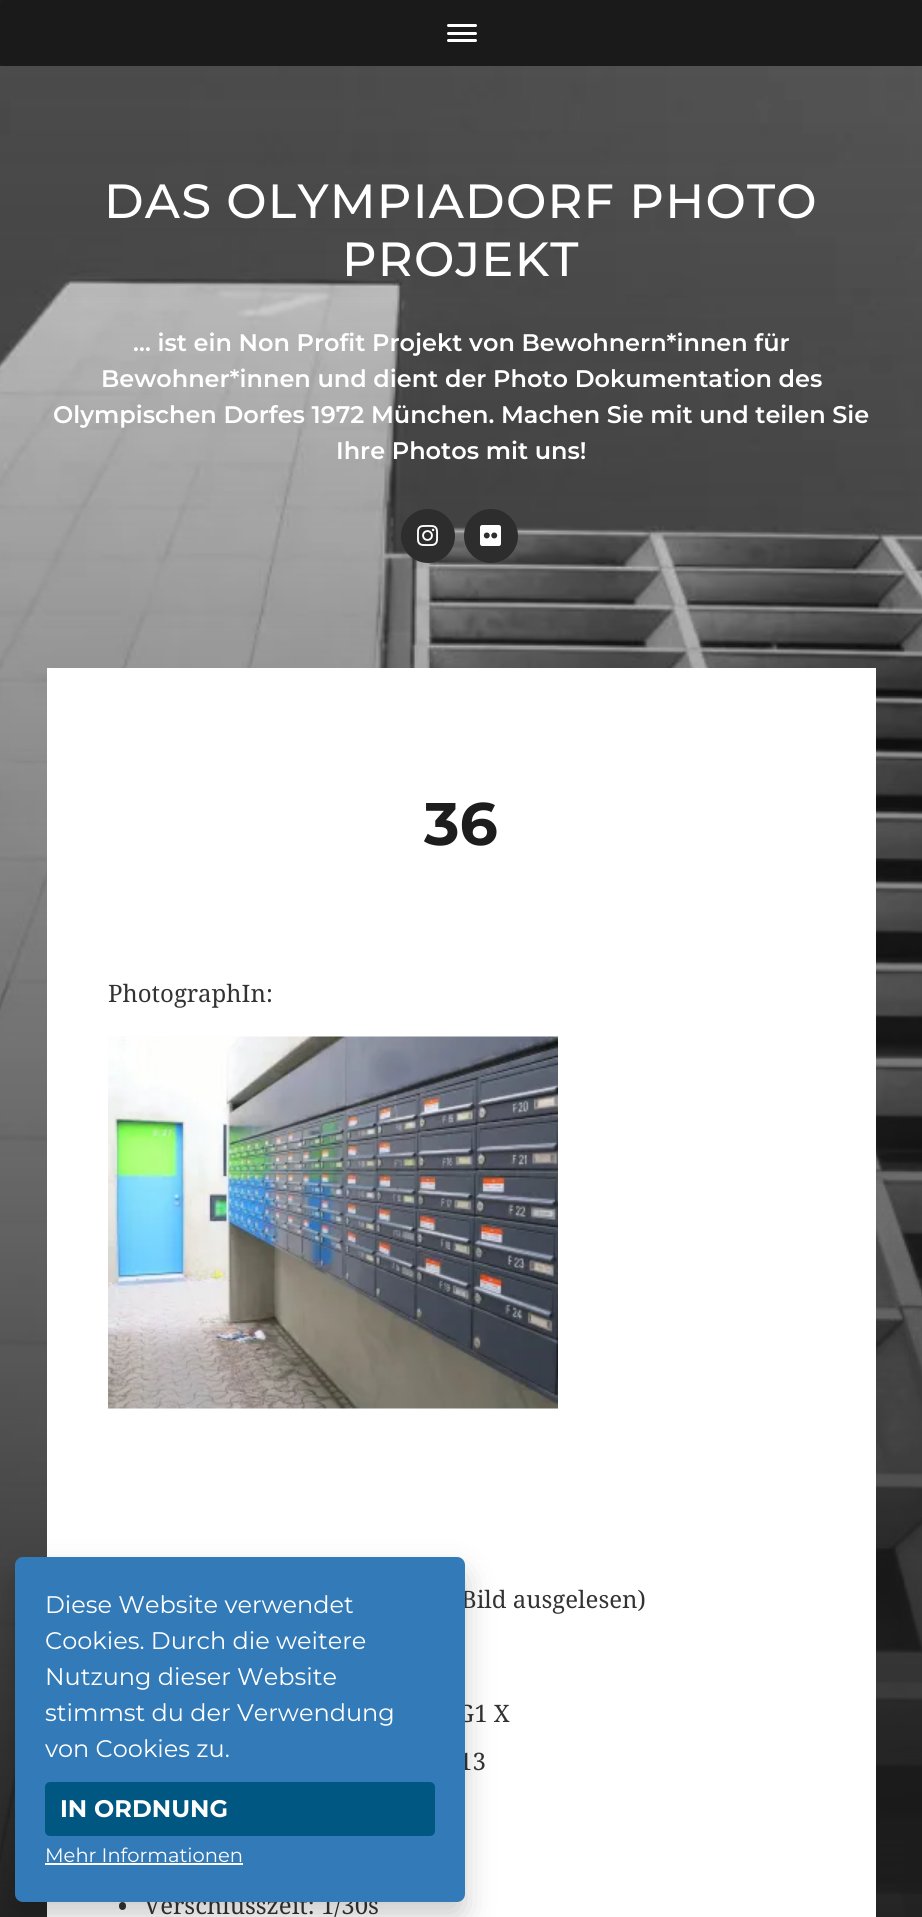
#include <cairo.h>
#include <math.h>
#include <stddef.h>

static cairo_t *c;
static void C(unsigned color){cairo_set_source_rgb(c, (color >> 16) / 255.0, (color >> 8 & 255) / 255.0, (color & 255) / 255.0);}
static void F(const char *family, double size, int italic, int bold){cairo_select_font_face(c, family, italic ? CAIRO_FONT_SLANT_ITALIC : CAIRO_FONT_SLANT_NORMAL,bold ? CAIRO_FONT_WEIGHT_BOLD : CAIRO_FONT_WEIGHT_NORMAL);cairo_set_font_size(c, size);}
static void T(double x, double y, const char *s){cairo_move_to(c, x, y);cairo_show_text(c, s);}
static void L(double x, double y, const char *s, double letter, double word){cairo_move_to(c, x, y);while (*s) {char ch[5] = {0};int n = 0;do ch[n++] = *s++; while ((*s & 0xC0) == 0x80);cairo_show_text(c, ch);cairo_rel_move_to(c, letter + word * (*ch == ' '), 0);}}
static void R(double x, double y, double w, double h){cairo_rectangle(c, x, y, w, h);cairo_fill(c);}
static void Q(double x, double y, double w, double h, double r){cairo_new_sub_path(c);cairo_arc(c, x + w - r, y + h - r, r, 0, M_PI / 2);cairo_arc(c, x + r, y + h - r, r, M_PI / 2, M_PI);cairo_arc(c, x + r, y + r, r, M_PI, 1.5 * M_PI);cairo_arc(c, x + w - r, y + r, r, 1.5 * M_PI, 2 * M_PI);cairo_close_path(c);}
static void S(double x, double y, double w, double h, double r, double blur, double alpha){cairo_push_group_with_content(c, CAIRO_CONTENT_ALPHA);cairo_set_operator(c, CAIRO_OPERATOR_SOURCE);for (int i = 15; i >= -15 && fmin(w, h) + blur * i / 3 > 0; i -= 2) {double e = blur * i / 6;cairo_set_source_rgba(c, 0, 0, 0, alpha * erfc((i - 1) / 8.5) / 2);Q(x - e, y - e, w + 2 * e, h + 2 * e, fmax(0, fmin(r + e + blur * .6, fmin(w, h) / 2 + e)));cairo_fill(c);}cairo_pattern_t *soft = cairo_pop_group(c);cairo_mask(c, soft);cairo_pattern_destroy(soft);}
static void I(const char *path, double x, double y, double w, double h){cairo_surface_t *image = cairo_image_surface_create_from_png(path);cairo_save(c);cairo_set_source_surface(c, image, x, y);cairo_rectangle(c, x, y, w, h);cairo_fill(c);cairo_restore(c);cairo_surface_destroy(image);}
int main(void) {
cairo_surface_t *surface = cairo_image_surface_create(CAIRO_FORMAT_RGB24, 922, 1917);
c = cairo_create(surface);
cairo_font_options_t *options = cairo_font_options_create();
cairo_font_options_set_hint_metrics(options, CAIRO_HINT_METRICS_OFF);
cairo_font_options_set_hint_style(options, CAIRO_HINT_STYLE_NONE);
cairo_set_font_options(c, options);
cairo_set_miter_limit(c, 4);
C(0x1d1d1d);
cairo_paint(c);
C(0x1a1a1a);
Q(0,0,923,66,5);
cairo_fill(c);
C(0xffffff);
Q(447,24,30,3,1.5);
cairo_fill(c);
Q(447,32,30,3,1.5);
cairo_fill(c);
Q(447,39,30,3,1.5);
cairo_fill(c);
I("1.png",0,66,922,1851);
F("Montserrat Thin",48,0,0);
L(104,218,"DAS OLYMPIADORF PHOTO",1.2,0);
L(342,276,"PROJEKT",1.2,0);
F("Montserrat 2 Thin",24,0,0);
T(133,351,"… ist ein Non Profit Projekt von Bewohnern*innen für");
T(101,387,"Bewohner*innen und dient der Photo Dokumentation des");
T(53,423,"Olympischen Dorfes 1972 München. Machen Sie mit und teilen Sie");
T(336,459,"Ihre Photos mit uns!");
C(0x2d2d2d);
cairo_new_path(c);
cairo_arc(c,428,536,27,0,2 * M_PI);
cairo_fill(c);
I("2.png",417,525,21,21);
cairo_arc(c,491,536,27,0,2 * M_PI);
cairo_fill(c);
I("3.png",480,525,21,21);
C(0xffffff);
R(47,668,829,1249);
F("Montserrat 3 Thin",60,0,0);
C(0x1d1d1d);
T(424,845,"36");
F("Droid Serif",24,0,0);
C(0x333333);
T(108,1002,"PhotographIn:");
I("4.png",108,1036,450,373);
T(461,1608,"Bild ausgelesen)");
T(457,1722,"G1 X");
T(459,1770,"13");
Q(119,1902,7,8,3.5);
cairo_fill(c);
T(144,1914,"Verschlusszeit: 1/30s");
C(0x000000);
S(15,1572,450,345,8,15,.2);
C(0x337bb8);
Q(15,1557,450,345,8);
cairo_fill(c);
F("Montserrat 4 Thin",24,0,0);
C(0xffffff);
T(45,1613,"Diese Website verwendet");
T(45,1649,"Cookies. Durch die weitere");
T(45,1685,"Nutzung dieser Website");
T(45,1721,"stimmst du der Verwendung");
T(45,1757,"von Cookies zu.");
C(0x005882);
Q(45,1782,390,54,5);
cairo_fill(c);
F("Montserrat 3 Thin",24,0,0);
C(0xffffff);
T(60,1817,"IN ORDNUNG");
F("Montserrat 4 Thin",19.5,0,0);
T(45,1862,"Mehr Informationen");
R(45,1863,198,2);
cairo_surface_write_to_png(surface, "o.png");
cairo_font_options_destroy(options);
cairo_destroy(c);
cairo_surface_destroy(surface);
return 0;
}
